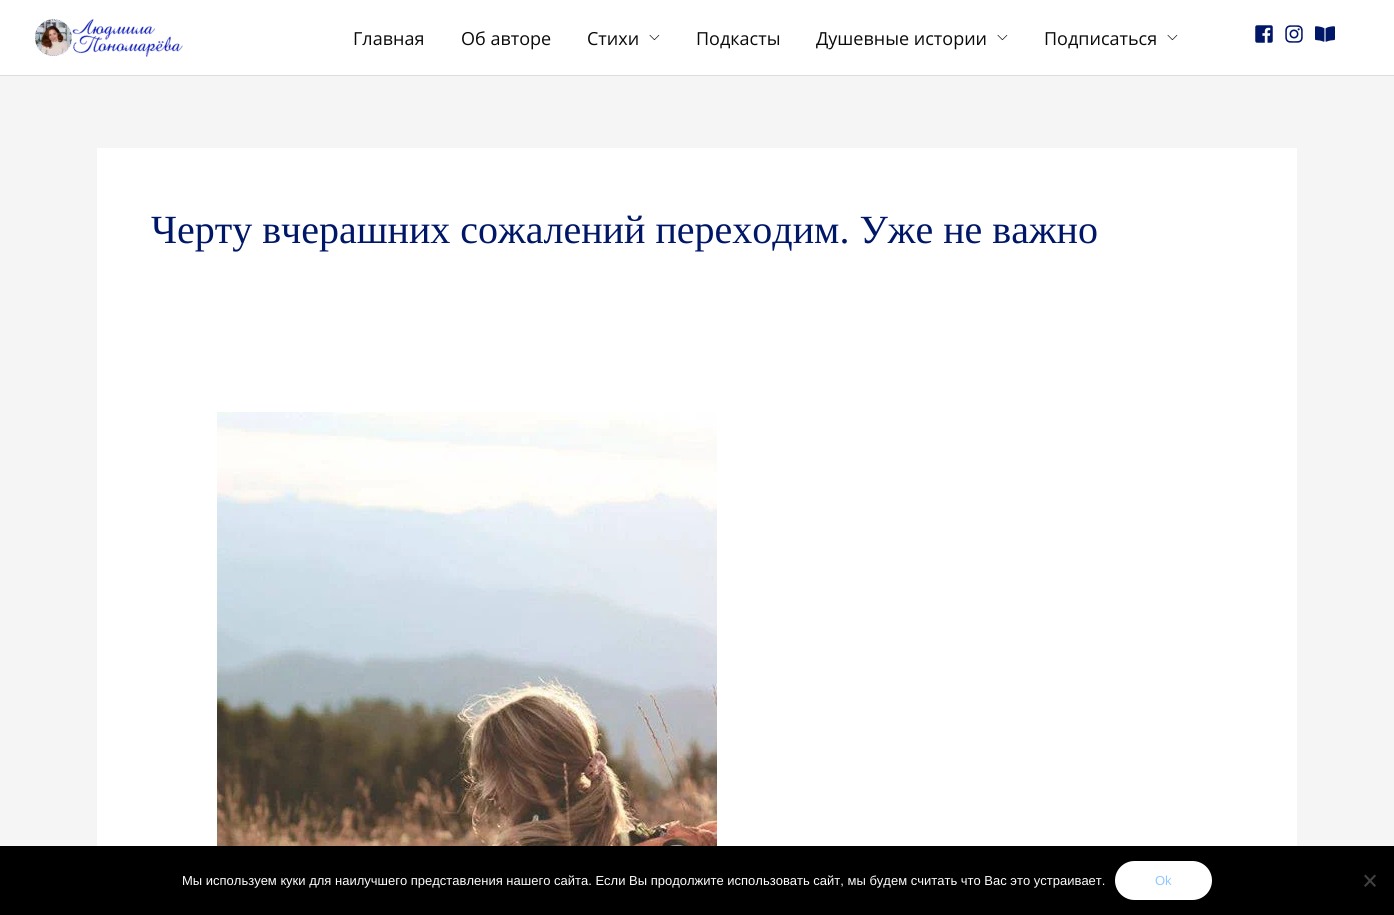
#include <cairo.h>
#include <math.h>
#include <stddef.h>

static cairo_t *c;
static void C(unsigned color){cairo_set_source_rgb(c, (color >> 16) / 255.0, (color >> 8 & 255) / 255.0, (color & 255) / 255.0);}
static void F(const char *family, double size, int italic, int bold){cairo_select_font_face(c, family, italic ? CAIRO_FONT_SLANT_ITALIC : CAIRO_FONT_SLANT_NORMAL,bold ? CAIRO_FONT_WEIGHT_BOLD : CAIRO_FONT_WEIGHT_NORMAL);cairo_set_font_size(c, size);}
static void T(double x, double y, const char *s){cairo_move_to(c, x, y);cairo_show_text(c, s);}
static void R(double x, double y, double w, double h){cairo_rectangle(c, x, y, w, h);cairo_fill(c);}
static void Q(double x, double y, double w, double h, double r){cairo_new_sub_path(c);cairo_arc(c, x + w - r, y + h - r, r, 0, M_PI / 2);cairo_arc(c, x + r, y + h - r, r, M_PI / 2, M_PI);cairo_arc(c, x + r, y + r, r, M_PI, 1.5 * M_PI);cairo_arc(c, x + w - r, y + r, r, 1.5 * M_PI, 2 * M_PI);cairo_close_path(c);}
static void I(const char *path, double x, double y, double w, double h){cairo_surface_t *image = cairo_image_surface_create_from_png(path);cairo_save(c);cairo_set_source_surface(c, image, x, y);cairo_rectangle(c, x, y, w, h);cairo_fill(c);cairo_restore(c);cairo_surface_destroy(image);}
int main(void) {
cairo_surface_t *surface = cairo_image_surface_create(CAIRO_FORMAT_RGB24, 1394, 915);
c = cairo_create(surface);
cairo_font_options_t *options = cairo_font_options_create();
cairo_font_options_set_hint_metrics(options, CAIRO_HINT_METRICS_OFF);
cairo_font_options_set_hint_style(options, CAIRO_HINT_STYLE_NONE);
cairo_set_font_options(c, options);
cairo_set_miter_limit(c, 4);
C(0xf5f5f5);
cairo_paint(c);
C(0xffffff);
R(0,0,1394,75);
C(0xdddddd);
R(0,75,1394,1);
I("1.png",35,19,148,38);
F("Open Sans",18,0,0);
C(0x0a0a0a);
T(353,45,"Главная");
T(461,45,"Об авторе");
T(587,45,"Стихи");
I("2.png",649,34,11,7);
T(696,45,"Подкасты");
T(816,45,"Душевные истории");
I("2.png",997,34,11,7);
T(1044,45,"Подписаться");
I("2.png",1167,34,11,7);
I("3.png",1255,25,18,18);
I("4.png",1285,25,18,18);
I("5.png",1315,26,20,16);
C(0xffffff);
R(97,148,1200,698);
F("Liberation Serif",40,0,0);
C(0x001667);
T(151,243,"Черту вчерашних сожалений переходим. Уже не важно");
I("6.png",217,412,500,434);
C(0x000000);
R(0,846,1394,69);
F("Liberation Sans",13,0,0);
C(0xffffff);
T(182,885,"Мы используем куки для наилучшего представления нашего сайта. Если Вы продолжите использовать сайт, мы будем считать что Вас это устраивает.");
Q(1115,861,97,39,19.5);
cairo_fill(c);
C(0x91c8ff);
T(1155,885,"Ok");
C(0x404040);
cairo_new_path(c);
cairo_move_to(c,1374.5,874.5);
cairo_line_to(c,1376,876);
cairo_line_to(c,1365.5,887);
cairo_line_to(c,1364,885.5);
cairo_close_path(c);
cairo_fill(c);
cairo_new_path(c);
cairo_move_to(c,1364,876);
cairo_line_to(c,1365.5,874.5);
cairo_line_to(c,1376,885.5);
cairo_line_to(c,1374.5,887);
cairo_close_path(c);
cairo_fill(c);
cairo_surface_write_to_png(surface, "o.png");
cairo_font_options_destroy(options);
cairo_destroy(c);
cairo_surface_destroy(surface);
return 0;
}
